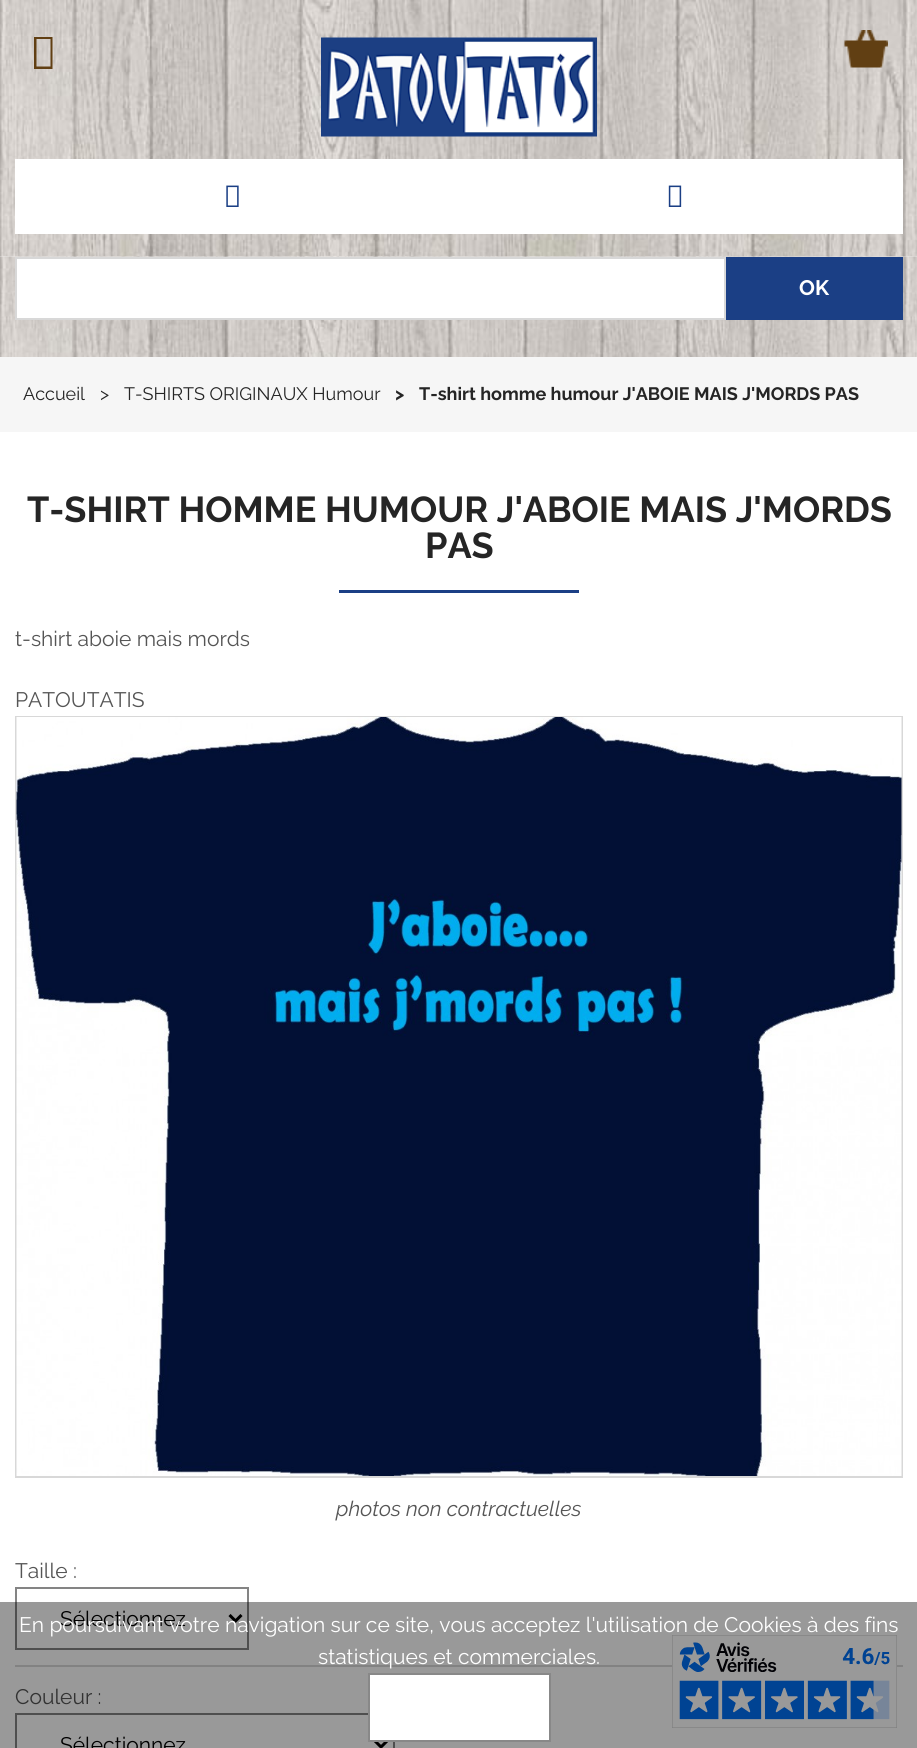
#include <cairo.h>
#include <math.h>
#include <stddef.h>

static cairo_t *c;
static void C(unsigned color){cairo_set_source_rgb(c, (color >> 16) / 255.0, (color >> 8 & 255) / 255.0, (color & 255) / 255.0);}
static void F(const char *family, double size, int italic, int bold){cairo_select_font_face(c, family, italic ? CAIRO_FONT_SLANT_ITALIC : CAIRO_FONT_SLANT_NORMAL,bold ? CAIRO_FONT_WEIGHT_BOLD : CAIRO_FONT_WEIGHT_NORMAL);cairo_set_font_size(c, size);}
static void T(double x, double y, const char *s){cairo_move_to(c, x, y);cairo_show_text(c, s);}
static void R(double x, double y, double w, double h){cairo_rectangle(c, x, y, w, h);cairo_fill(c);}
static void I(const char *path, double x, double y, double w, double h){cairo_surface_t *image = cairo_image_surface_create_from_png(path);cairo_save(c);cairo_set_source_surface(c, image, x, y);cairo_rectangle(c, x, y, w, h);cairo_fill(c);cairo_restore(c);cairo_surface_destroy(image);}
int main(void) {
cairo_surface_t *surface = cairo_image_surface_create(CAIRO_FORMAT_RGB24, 917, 1748);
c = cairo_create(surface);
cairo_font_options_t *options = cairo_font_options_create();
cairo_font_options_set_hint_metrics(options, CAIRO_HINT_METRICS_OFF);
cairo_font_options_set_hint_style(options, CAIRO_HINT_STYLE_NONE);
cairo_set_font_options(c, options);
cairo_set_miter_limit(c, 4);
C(0xffffff);
cairo_paint(c);
I("1.png",0,0,917,257);
C(0xffffff);
R(15,159,888,75);
I("2.png",844,30,44,38);
I("3.png",226,185,13,22);
I("4.png",668,185,14,22);
C(0x613f13);
cairo_new_path(c);
cairo_move_to(c,34,69);
cairo_line_to(c,34,37);
cairo_line_to(c,52.5,37);
cairo_line_to(c,52.5,69);
cairo_close_path(c);
cairo_move_to(c,36.5,66.5);
cairo_line_to(c,50.5,66.5);
cairo_line_to(c,50.5,39);
cairo_line_to(c,36.5,39);
cairo_close_path(c);
cairo_fill(c);
I("5.png",321,37,276,100);
I("6.png",0,256,917,101);
C(0xffffff);
cairo_rectangle(c,16,258,709,61);
cairo_fill_preserve(c);
C(0xd8d8d8);
cairo_stroke(c);
C(0x1b3f85);
R(726,257,177,63);
F("Raleway",21,0,1);
C(0xffffff);
T(799,295,"OK");
C(0xf6f6f6);
R(0,357,917,75);
F("Raleway",18,0,0);
C(0x252525);
T(23,400,"Accueil");
T(100,400,">");
T(124,400,"T-SHIRTS ORIGINAUX Humour");
F("Raleway",18,0,1);
T(395,400,">");
T(419,400,"T-shirt homme humour J'ABOIE MAIS J'MORDS PAS");
F("Raleway",36,0,1);
T(27,522,"T-SHIRT HOMME HUMOUR J'ABOIE MAIS J'MORDS");
T(425,558,"PAS");
C(0x1b3f85);
R(339,590,240,3);
F("Raleway",21,0,0);
C(0x555555);
T(15,646,"t-shirt aboie mais mords");
T(15,707,"PATOUTATIS");
cairo_rectangle(c,16,717,886,760);
C(0xd8d8d8);
cairo_stroke(c);
I("7.png",16,717,886,759);
F("Raleway",21,1,0);
C(0x555555);
T(336,1516,"photos non contractuelles");
C(0xd8d8d8);
R(15,1665,888,2);
F("Raleway",21,0,0);
C(0x555555);
T(15,1578,"Taille :");
cairo_rectangle(c,16,1588,232,61);
C(0x848484);
cairo_stroke(c);
cairo_new_path(c);
cairo_move_to(c,229.5,1615);
cairo_line_to(c,235.5,1621);
cairo_line_to(c,241.5,1615);
C(0x000000);
cairo_set_line_width(c,3);
cairo_stroke(c);
T(60,1626,"Sélectionnez");
C(0x555555);
T(15,1704,"Couleur :");
cairo_rectangle(c,16,1714,378,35);
C(0x848484);
cairo_set_line_width(c,2);
cairo_stroke(c);
cairo_new_path(c);
cairo_move_to(c,375,1741);
cairo_line_to(c,381,1747);
cairo_line_to(c,387,1741);
C(0x000000);
cairo_set_line_width(c,3);
cairo_stroke(c);
T(60,1752,"Sélectionnez");
I("8.png",672,1635,225,93);
cairo_set_source_rgba(c,0,0,0,0.4);
R(0,1602,917,146);
C(0xffffff);
T(19,1632,"En poursuivant votre navigation sur ce site, vous acceptez l'utilisation de Cookies à des fins");
T(318,1664,"statistiques et commerciales.");
cairo_rectangle(c,369,1674,181,67);
cairo_fill_preserve(c);
C(0x888888);
cairo_set_line_width(c,2);
cairo_stroke(c);
cairo_surface_write_to_png(surface, "o.png");
cairo_font_options_destroy(options);
cairo_destroy(c);
cairo_surface_destroy(surface);
return 0;
}
